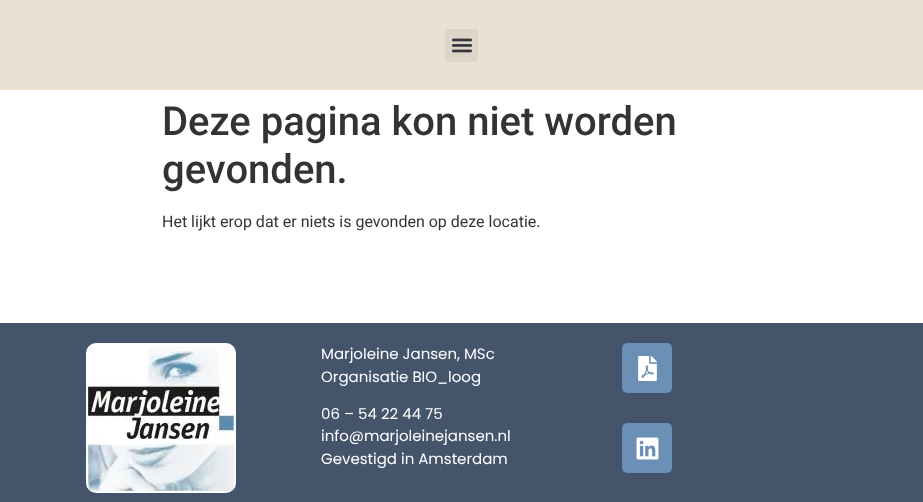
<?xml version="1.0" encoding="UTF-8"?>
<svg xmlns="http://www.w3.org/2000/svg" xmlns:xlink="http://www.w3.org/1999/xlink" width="923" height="502">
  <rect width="100%" height="100%" fill="#ffffff" />
  <rect width="923" height="90" fill="#eae0d4" />
  <rect x="445" y="29" width="33" height="33" rx="3" fill="#ded5c9" />
  <image x="451" y="38" width="22" height="15" xlink:href="image1.png" />
  <rect y="323" width="923" height="179" fill="#44546a" />
  <image x="86" y="343" width="150" height="150" xlink:href="image2.png" />
  <rect x="622" y="343" width="50" height="50" rx="5" fill="#6b8fb5" />
  <image x="638" y="356" width="19" height="25" xlink:href="image3.png" />
  <rect x="622" y="423" width="50" height="50" rx="5" fill="#6b8fb5" />
  <image x="636" y="437" width="23" height="23" xlink:href="image4.png" />
  <text x="162" y="135" style="font-family: Roboto; font-size: 40px; font-weight: 500; fill: #333333">Deze pagina kon niet worden</text>
  <text x="162" y="183" style="font-family: Roboto; font-size: 40px; font-weight: 500; fill: #333333">gevonden.</text>
  <text x="162" y="227" style="font-family: Roboto; font-size: 16px; fill: #333333">Het lijkt erop dat er niets is gevonden op deze locatie.</text>
  <text x="321" y="359" style="font-family: Poppins; font-size: 15px; fill: #ffffff">Marjoleine Jansen, MSc</text>
  <text x="321" y="382" style="font-family: Poppins; font-size: 15px; fill: #ffffff">Organisatie BIO_loog</text>
  <text x="321" y="419" style="font-family: Poppins; font-size: 15px; fill: #ffffff">06 – 54 22 44 75</text>
  <text x="321" y="441" style="font-family: Poppins; font-size: 15px; fill: #ffffff">info@marjoleinejansen.nl</text>
  <text x="321" y="464" style="font-family: Poppins; font-size: 15px; fill: #ffffff">Gevestigd in Amsterdam</text>
</svg>
